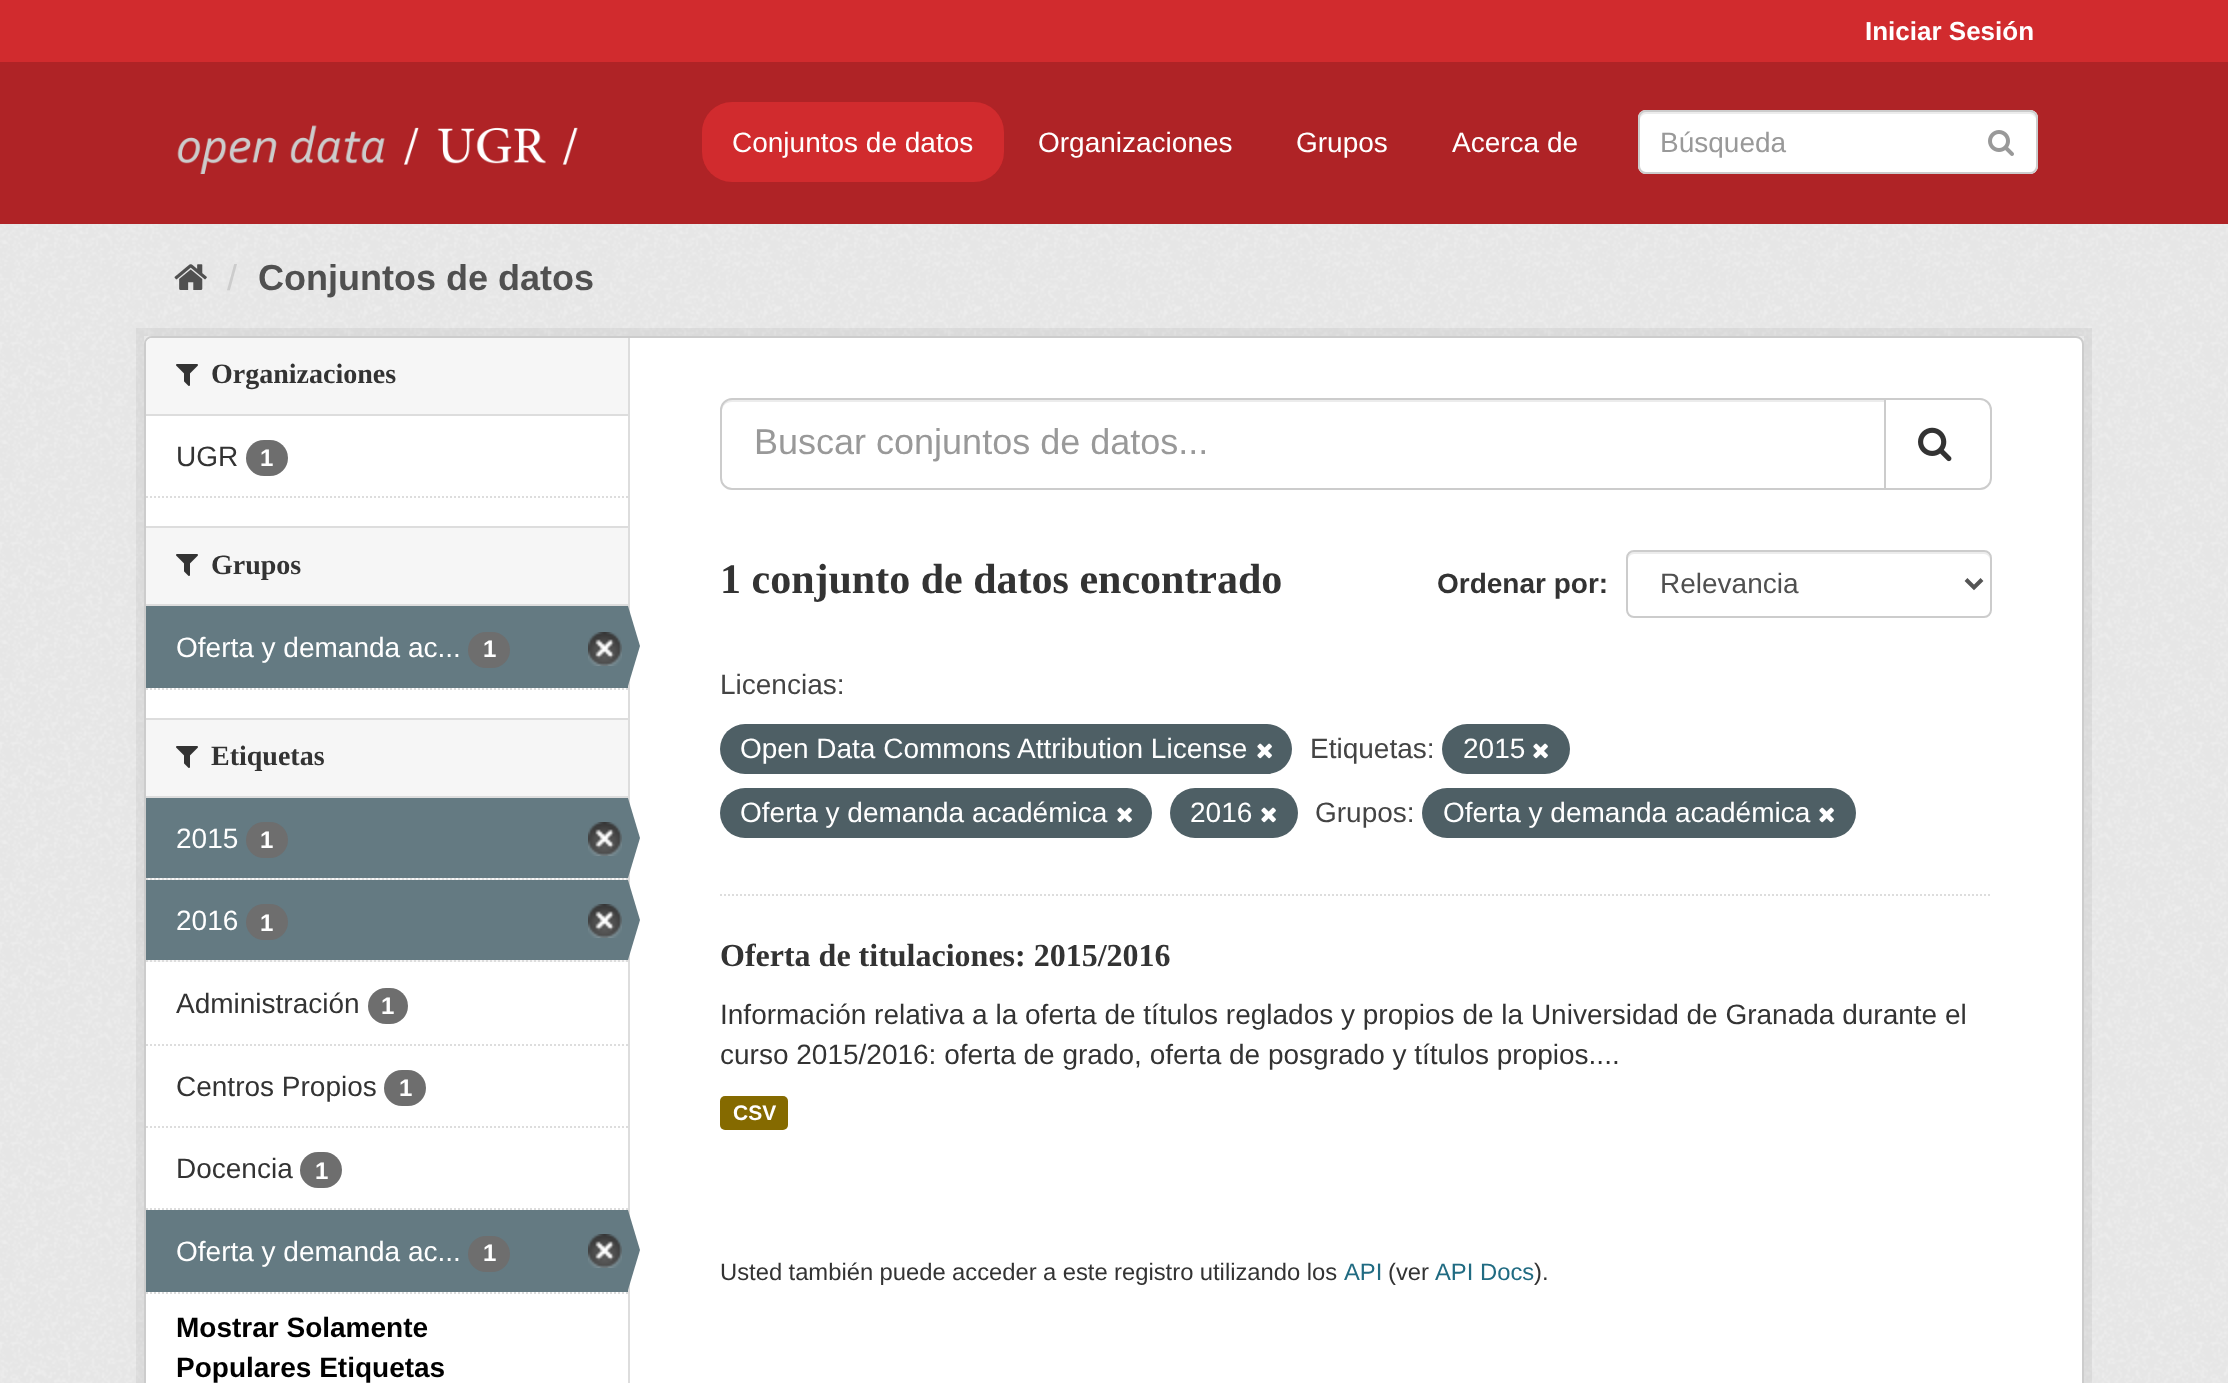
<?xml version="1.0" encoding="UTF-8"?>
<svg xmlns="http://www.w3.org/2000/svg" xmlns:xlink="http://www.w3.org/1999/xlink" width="2228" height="1383">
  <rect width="100%" height="100%" fill="#d12b2e" />
  <rect y="62" width="2228" height="162" fill="#af2326" />
  <image x="177" y="125" width="401" height="49" xlink:href="image1.png" />
  <rect x="702" y="102" width="302" height="80" rx="30" fill="#d12b2e" />
  <rect x="1638" y="110" width="400" height="64" rx="8" fill="#ffffff" />
  <path d="M 1646 114 h 384 c 3 0 6 3 6 6 c 0 -4 -1 -8 -6 -8 h -384 c -5 0 -6 4 -6 8 c 0 -3 3 -6 6 -6 z" fill="#ececec" />
  <rect x="1639" y="111" width="398" height="62" rx="7" fill="none" stroke="#cccccc" stroke-width="2" />
  <image x="1988" y="130" width="26" height="26" xlink:href="image2.png" />
  <rect y="224" width="2228" height="1159" fill="#eeeeee" />
  <image x="0" y="224" width="2228" height="1159" xlink:href="image3.png" />
  <image x="174" y="264" width="33" height="26" xlink:href="image4.png" />
  <rect x="140" y="332" width="1948" height="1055" fill="none" stroke="#000000" stroke-opacity="0.05" stroke-width="8" />
  <rect x="145" y="337" width="1938" height="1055" rx="7" fill="#ffffff" stroke="#cccccc" stroke-width="2" />
  <path d="M 152 338 h 476 v 78 h -482 v -72 c 0 -3.5 2.5 -6 6 -6 z" fill="#f6f6f6" />
  <rect x="146" y="414" width="482" height="2" fill="#dddddd" />
  <image x="176" y="364" width="22" height="22" xlink:href="image5.png" />
  <rect x="246" y="440" width="42" height="36" rx="18" fill="#6e6e6e" />
  <path d="M 146 497 h 482" fill="none" stroke="#dddddd" stroke-width="2" stroke-dasharray="2 2" />
  <rect x="146" y="528" width="482" height="76" fill="#f6f6f6" />
  <rect x="146" y="526" width="482" height="2" fill="#dddddd" />
  <rect x="146" y="604" width="482" height="2" fill="#dddddd" />
  <image x="176" y="554" width="22" height="22" xlink:href="image5.png" />
  <rect x="146" y="606" width="482" height="82" fill="#647a82" />
  <rect x="468" y="632" width="42" height="36" rx="18" fill="#6e6e6e" />
  <image x="588" y="632" width="34" height="34" xlink:href="image6.png" />
  <rect x="628" y="338" width="2" height="1045" fill="#dddddd" />
  <path d="M 628 686 v -80 l 12 40 z" fill="#647a82" />
  <path d="M 146 689 h 482" fill="none" stroke="#dddddd" stroke-width="2" stroke-dasharray="2 2" />
  <rect x="146" y="720" width="482" height="76" fill="#f6f6f6" />
  <rect x="146" y="718" width="482" height="2" fill="#dddddd" />
  <rect x="146" y="796" width="482" height="2" fill="#dddddd" />
  <image x="176" y="746" width="22" height="22" xlink:href="image5.png" />
  <rect x="148" y="878" width="478" height="2" fill="#f6f6f6" />
  <path d="M 146 879 h 482" fill="none" stroke="#dddddd" stroke-width="2" stroke-dasharray="2 2" />
  <rect x="146" y="798" width="482" height="80" fill="#647a82" />
  <rect x="246" y="822" width="42" height="36" rx="18" fill="#6e6e6e" />
  <image x="588" y="822" width="34" height="34" xlink:href="image6.png" />
  <path d="M 628 878 v -80 l 12 40 z" fill="#647a82" />
  <rect x="148" y="960" width="478" height="2" fill="#f6f6f6" />
  <path d="M 146 961 h 482" fill="none" stroke="#dddddd" stroke-width="2" stroke-dasharray="2 2" />
  <rect x="146" y="880" width="482" height="80" fill="#647a82" />
  <rect x="246" y="904" width="42" height="36" rx="18" fill="#6e6e6e" />
  <image x="588" y="904" width="34" height="34" xlink:href="image6.png" />
  <path d="M 628 960 v -80 l 12 40 z" fill="#647a82" />
  <path d="M 146 1045 h 482" fill="none" stroke="#dddddd" stroke-width="2" stroke-dasharray="2 2" />
  <rect x="368" y="988" width="40" height="36" rx="18" fill="#6e6e6e" />
  <path d="M 146 1127 h 482" fill="none" stroke="#dddddd" stroke-width="2" stroke-dasharray="2 2" />
  <rect x="384" y="1070" width="42" height="36" rx="18" fill="#6e6e6e" />
  <path d="M 146 1209 h 482" fill="none" stroke="#dddddd" stroke-width="2" stroke-dasharray="2 2" />
  <rect x="300" y="1152" width="42" height="36" rx="18" fill="#6e6e6e" />
  <rect x="146" y="1210" width="482" height="82" fill="#647a82" />
  <rect x="468" y="1236" width="42" height="36" rx="18" fill="#6e6e6e" />
  <image x="588" y="1234" width="34" height="34" xlink:href="image6.png" />
  <path d="M 628 1290 v -80 l 12 40 z" fill="#647a82" />
  <path d="M 146 1293 h 482" fill="none" stroke="#dddddd" stroke-width="2" stroke-dasharray="2 2" />
  <path d="M 720 895 h 1272" fill="none" stroke="#dddddd" stroke-width="2" stroke-dasharray="2 2" />
  <path d="M 732 402 h 1152 v -2 h -1152 c -7 0 -10 6 -10 12 c 0 -6 4 -10 10 -10 z" fill="#ececec" />
  <path d="M 732 399 h 1153 v 90 h -1153 c -6 0 -11 -5 -11 -11 v -68 c 0 -6 5 -11 11 -11 z" fill="none" stroke="#cccccc" stroke-width="2" />
  <path d="M 1885 399 h 95 c 6 0 11 5 11 11 v 68 c 0 6 -5 11 -11 11 h -95 z" fill="#ffffff" stroke="#cccccc" stroke-width="2" />
  <image x="1918" y="427" width="34" height="35" xlink:href="image7.png" />
  <path d="M 1634 554 h 350 c 3 0 6 3 6 6 v -2 c 0 -3 -3 -6 -6 -6 h -350 c -3 0 -6 3 -6 6 v 2 c 0 -3 3 -6 6 -6 z" fill="#ececec" />
  <rect x="1627" y="551" width="364" height="66" rx="7" fill="none" stroke="#cccccc" stroke-width="2" />
  <path d="M 1966 579.5 l 8 8 l 8 -8" fill="none" stroke="#555555" stroke-width="4" />
  <rect x="720" y="724" width="572" height="50" rx="25" fill="#4e5f65" />
  <image x="1257" y="743" width="15" height="16" xlink:href="image8.png" />
  <rect x="1442" y="724" width="128" height="50" rx="25" fill="#4e5f65" />
  <image x="1533" y="743" width="15" height="16" xlink:href="image8.png" />
  <rect x="720" y="788" width="432" height="50" rx="25" fill="#4e5f65" />
  <image x="1117" y="807" width="15" height="16" xlink:href="image8.png" />
  <rect x="1170" y="788" width="128" height="50" rx="25" fill="#4e5f65" />
  <image x="1261" y="807" width="15" height="16" xlink:href="image8.png" />
  <rect x="1422" y="788" width="434" height="50" rx="25" fill="#4e5f65" />
  <image x="1819" y="807" width="15" height="16" xlink:href="image8.png" />
  <rect x="720" y="1096" width="68" height="34" rx="5" fill="#856a00" />
  <text x="1865" y="40" style="font-family: Liberation Sans; font-size: 26px; font-weight: bold; fill: #ffffff">Iniciar Sesión</text>
  <text x="732" y="152" style="font-family: Liberation Sans; font-size: 28px; fill: #ffffff">Conjuntos de datos</text>
  <text x="1038" y="152" style="font-family: Liberation Sans; font-size: 28px; fill: #ffffff">Organizaciones</text>
  <text x="1296" y="152" style="font-family: Liberation Sans; font-size: 28px; fill: #ffffff">Grupos</text>
  <text x="1452" y="152" style="font-family: Liberation Sans; font-size: 28px; fill: #ffffff">Acerca de</text>
  <text x="1660" y="152" style="font-family: Liberation Sans; font-size: 28px; fill: #999999">Búsqueda</text>
  <text x="227" y="290" style="font-family: Liberation Sans; font-size: 36px; fill: #cccccc">/</text>
  <text x="258" y="290" style="font-family: Liberation Sans; font-size: 36px; font-weight: bold; fill: #505050">Conjuntos de datos</text>
  <text x="211" y="383" style="font-family: Liberation Serif; font-size: 28px; font-weight: bold; fill: #333333">Organizaciones</text>
  <text x="176" y="466" style="font-family: Liberation Sans; font-size: 28px; fill: #333333">UGR</text>
  <text x="260" y="466" style="font-family: Liberation Sans; font-size: 24px; font-weight: bold; fill: #ffffff">1</text>
  <text x="211" y="574" style="font-family: Liberation Serif; font-size: 28px; font-weight: bold; fill: #333333">Grupos</text>
  <text x="176" y="657" style="font-family: Liberation Sans; font-size: 28px; fill: #ffffff">Oferta y demanda ac...</text>
  <text x="483" y="657" style="font-family: Liberation Sans; font-size: 24px; font-weight: bold; fill: #ffffff">1</text>
  <text x="211" y="765" style="font-family: Liberation Serif; font-size: 28px; font-weight: bold; fill: #333333">Etiquetas</text>
  <text x="176" y="848" style="font-family: Liberation Sans; font-size: 28px; fill: #ffffff">2015</text>
  <text x="260" y="848" style="font-family: Liberation Sans; font-size: 24px; font-weight: bold; fill: #ffffff">1</text>
  <text x="176" y="930" style="font-family: Liberation Sans; font-size: 28px; fill: #ffffff">2016</text>
  <text x="260" y="931" style="font-family: Liberation Sans; font-size: 24px; font-weight: bold; fill: #ffffff">1</text>
  <text x="176" y="1013" style="font-family: Liberation Sans; font-size: 28px; fill: #333333">Administración</text>
  <text x="381" y="1014" style="font-family: Liberation Sans; font-size: 24px; font-weight: bold; fill: #ffffff">1</text>
  <text x="176" y="1096" style="font-family: Liberation Sans; font-size: 28px; fill: #333333">Centros Propios</text>
  <text x="399" y="1096" style="font-family: Liberation Sans; font-size: 24px; font-weight: bold; fill: #ffffff">1</text>
  <text x="176" y="1178" style="font-family: Liberation Sans; font-size: 28px; fill: #333333">Docencia</text>
  <text x="315" y="1179" style="font-family: Liberation Sans; font-size: 24px; font-weight: bold; fill: #ffffff">1</text>
  <text x="176" y="1261" style="font-family: Liberation Sans; font-size: 28px; fill: #ffffff">Oferta y demanda ac...</text>
  <text x="483" y="1261" style="font-family: Liberation Sans; font-size: 24px; font-weight: bold; fill: #ffffff">1</text>
  <text x="176" y="1337" style="font-family: Liberation Sans; font-size: 28px; font-weight: bold; fill: #000000">Mostrar Solamente</text>
  <text x="176" y="1377" style="font-family: Liberation Sans; font-size: 28px; font-weight: bold; fill: #000000">Populares Etiquetas</text>
  <text x="754" y="454" style="font-family: Liberation Sans; font-size: 36px; fill: #999999">Buscar conjuntos de datos...</text>
  <text x="720" y="593" style="font-family: Liberation Serif; font-size: 42px; font-weight: bold; fill: #333333">1 conjunto de datos encontrado</text>
  <text x="1437" y="593" style="font-family: Liberation Sans; font-size: 28px; font-weight: bold; fill: #333333">Ordenar por:</text>
  <text x="1660" y="593" style="font-family: Liberation Sans; font-size: 28px; fill: #505050">Relevancia</text>
  <text x="720" y="694" style="font-family: Liberation Sans; font-size: 28px; fill: #444444">Licencias:</text>
  <text x="740" y="758" style="font-family: Liberation Sans; font-size: 28px; fill: #ffffff">Open Data Commons Attribution License</text>
  <text x="1310" y="758" style="font-family: Liberation Sans; font-size: 28px; fill: #444444">Etiquetas:</text>
  <text x="1463" y="758" style="font-family: Liberation Sans; font-size: 28px; fill: #ffffff">2015</text>
  <text x="740" y="822" style="font-family: Liberation Sans; font-size: 28px; fill: #ffffff">Oferta y demanda académica</text>
  <text x="1190" y="822" style="font-family: Liberation Sans; font-size: 28px; fill: #ffffff">2016</text>
  <text x="1315" y="822" style="font-family: Liberation Sans; font-size: 28px; fill: #444444">Grupos:</text>
  <text x="1443" y="822" style="font-family: Liberation Sans; font-size: 28px; fill: #ffffff">Oferta y demanda académica</text>
  <text x="720" y="966" style="font-family: Liberation Serif; font-size: 32px; font-weight: bold; fill: #333333">Oferta de titulaciones: 2015/2016</text>
  <text x="720" y="1024" style="font-family: Liberation Sans; font-size: 28px; fill: #333333">Información relativa a la oferta de títulos reglados y propios de la Universidad de Granada durante el</text>
  <text x="720" y="1064" style="font-family: Liberation Sans; font-size: 28px; fill: #333333">curso 2015/2016: oferta de grado, oferta de posgrado y títulos propios....</text>
  <text x="733" y="1120" style="font-family: Liberation Sans; font-size: 21px; font-weight: bold; fill: #ffffff">CSV</text>
  <text x="720" y="1280" word-spacing="-0.25" style="font-family: Liberation Sans; font-size: 23.8px; fill: #333333">Usted también puede acceder a este registro utilizando los</text>
  <text x="1344" y="1280" style="font-family: Liberation Sans; font-size: 23.8px; fill: #206b82">API</text>
  <text x="1388" y="1280" style="font-family: Liberation Sans; font-size: 23.8px; fill: #333333">(ver</text>
  <text x="1435" y="1280" style="font-family: Liberation Sans; font-size: 23.8px; fill: #206b82">API Docs</text>
  <text x="1534" y="1280" style="font-family: Liberation Sans; font-size: 23.8px; fill: #333333">).</text>
</svg>
